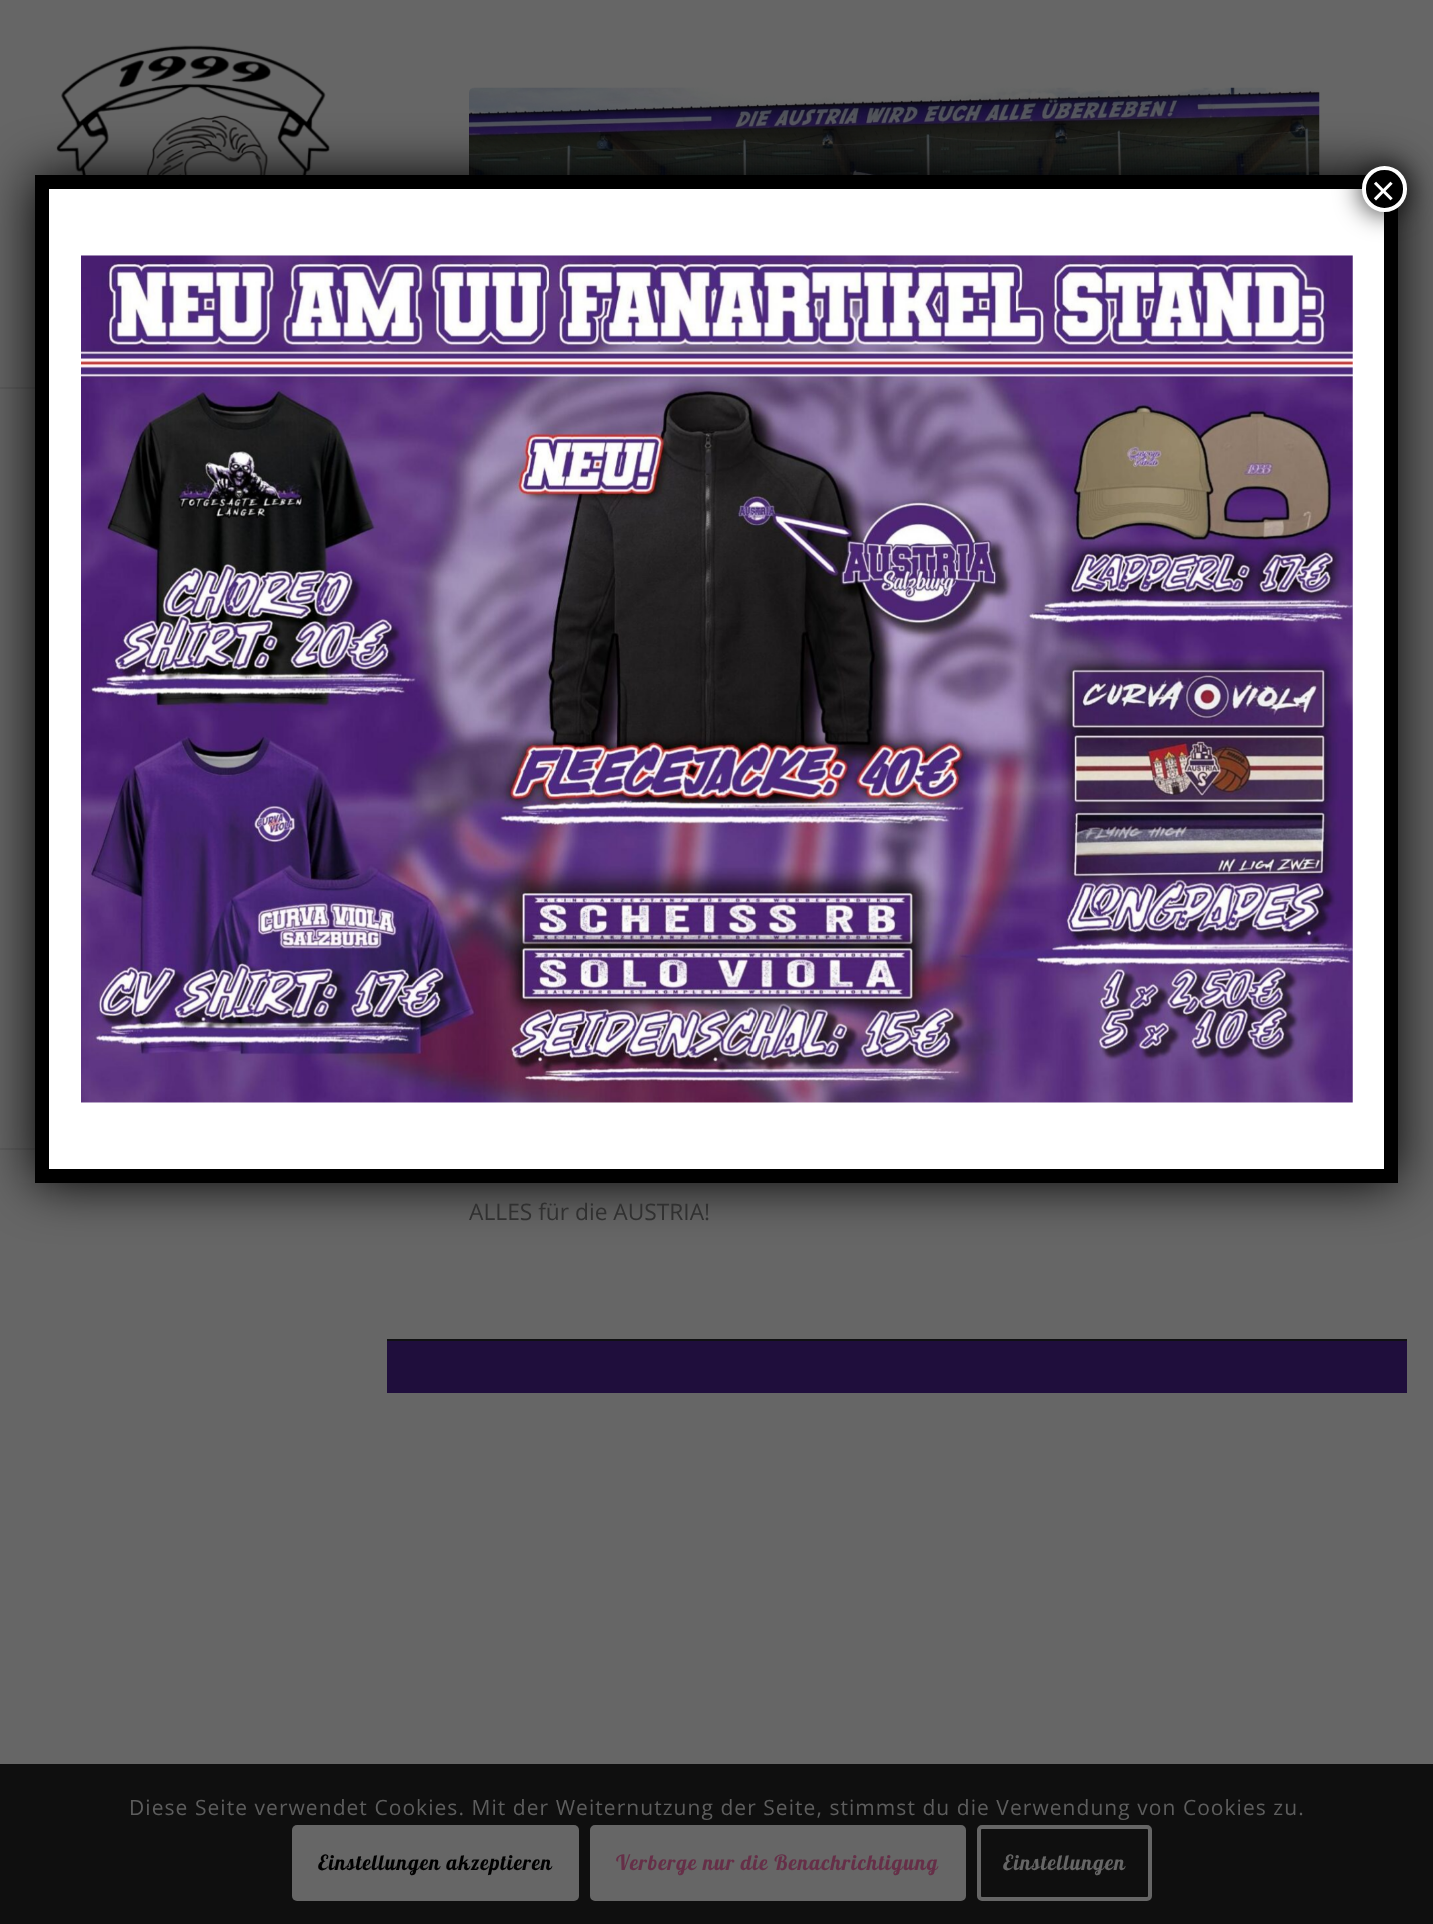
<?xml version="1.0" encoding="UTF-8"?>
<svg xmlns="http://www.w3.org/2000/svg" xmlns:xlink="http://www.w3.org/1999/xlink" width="1433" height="1924">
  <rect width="100%" height="100%" fill="#666666" />
  <rect y="1148" width="35" height="2" fill="#5e5e5e" />
  <rect y="387" width="35" height="2" fill="#5e5e5e" />
  <image x="56" y="45" width="274" height="130" xlink:href="image2.png" />
  <image x="469" y="87" width="851" height="88" xlink:href="image3.png" />
  <rect x="35" y="175" width="1363" height="1008" rx="5" fill="#020202" filter="blur(26px)" />
  <rect x="49" y="189" width="1335" height="980" fill="#ffffff" />
  <path d="M 42 182 h 1349 v 994 h -1349 z" fill="none" stroke="#000000" stroke-width="14" />
  <rect x="1360" y="165" width="49" height="49" rx="24.5" fill="#020202" fill-opacity="0.75" filter="blur(13px)" />
  <rect x="1364" y="168" width="41" height="42" rx="20.5" fill="#000000" stroke="#ffffff" stroke-width="4" />
  <image x="81" y="255" width="1272" height="848" xlink:href="image1.png" />
  <rect x="382" y="1339" width="1025" height="2" fill="#101112" />
  <rect x="382" y="1339" width="5" height="2" fill="#666666" />
  <rect x="387" y="1341" width="1020" height="52" fill="#1f0e3c" />
  <rect y="1764" width="1433" height="160" fill="#0f0f0f" />
  <rect x="292" y="1825" width="287" height="76" rx="5" fill="#666666" />
  <rect x="592" y="1827" width="372" height="72" rx="3" fill="#666666" stroke="#666666" stroke-width="4" />
  <rect x="979" y="1827" width="171" height="72" rx="3" fill="none" stroke="#666666" stroke-width="4" />
  <text x="1371" y="205" style="font-family: Liberation Sans; font-size: 42px; fill: #ffffff">×</text>
  <text x="469" y="1220" style="font-family: Open Sans; font-size: 22.75px; fill: #303030">ALLES für die AUSTRIA!</text>
  <text x="129" y="1815" style="font-family: Open Sans; font-size: 21px; letter-spacing: 1.05px; fill: #5d5d5d">Diese Seite verwendet Cookies. Mit der Weiternutzung der Seite, stimmst du die Verwendung von Cookies zu.</text>
  <text x="318" y="1870" style="font-family: Lobster; font-size: 21px; letter-spacing: 1.05px; fill: #000000">Einstellungen akzeptieren</text>
  <text x="616" y="1870" style="font-family: Lobster; font-size: 21px; letter-spacing: 1.05px; fill: #662f48">Verberge nur die Benachrichtigung</text>
  <text x="1003" y="1870" style="font-family: Lobster; font-size: 21px; letter-spacing: 1.05px; fill: #666666">Einstellungen</text>
</svg>
